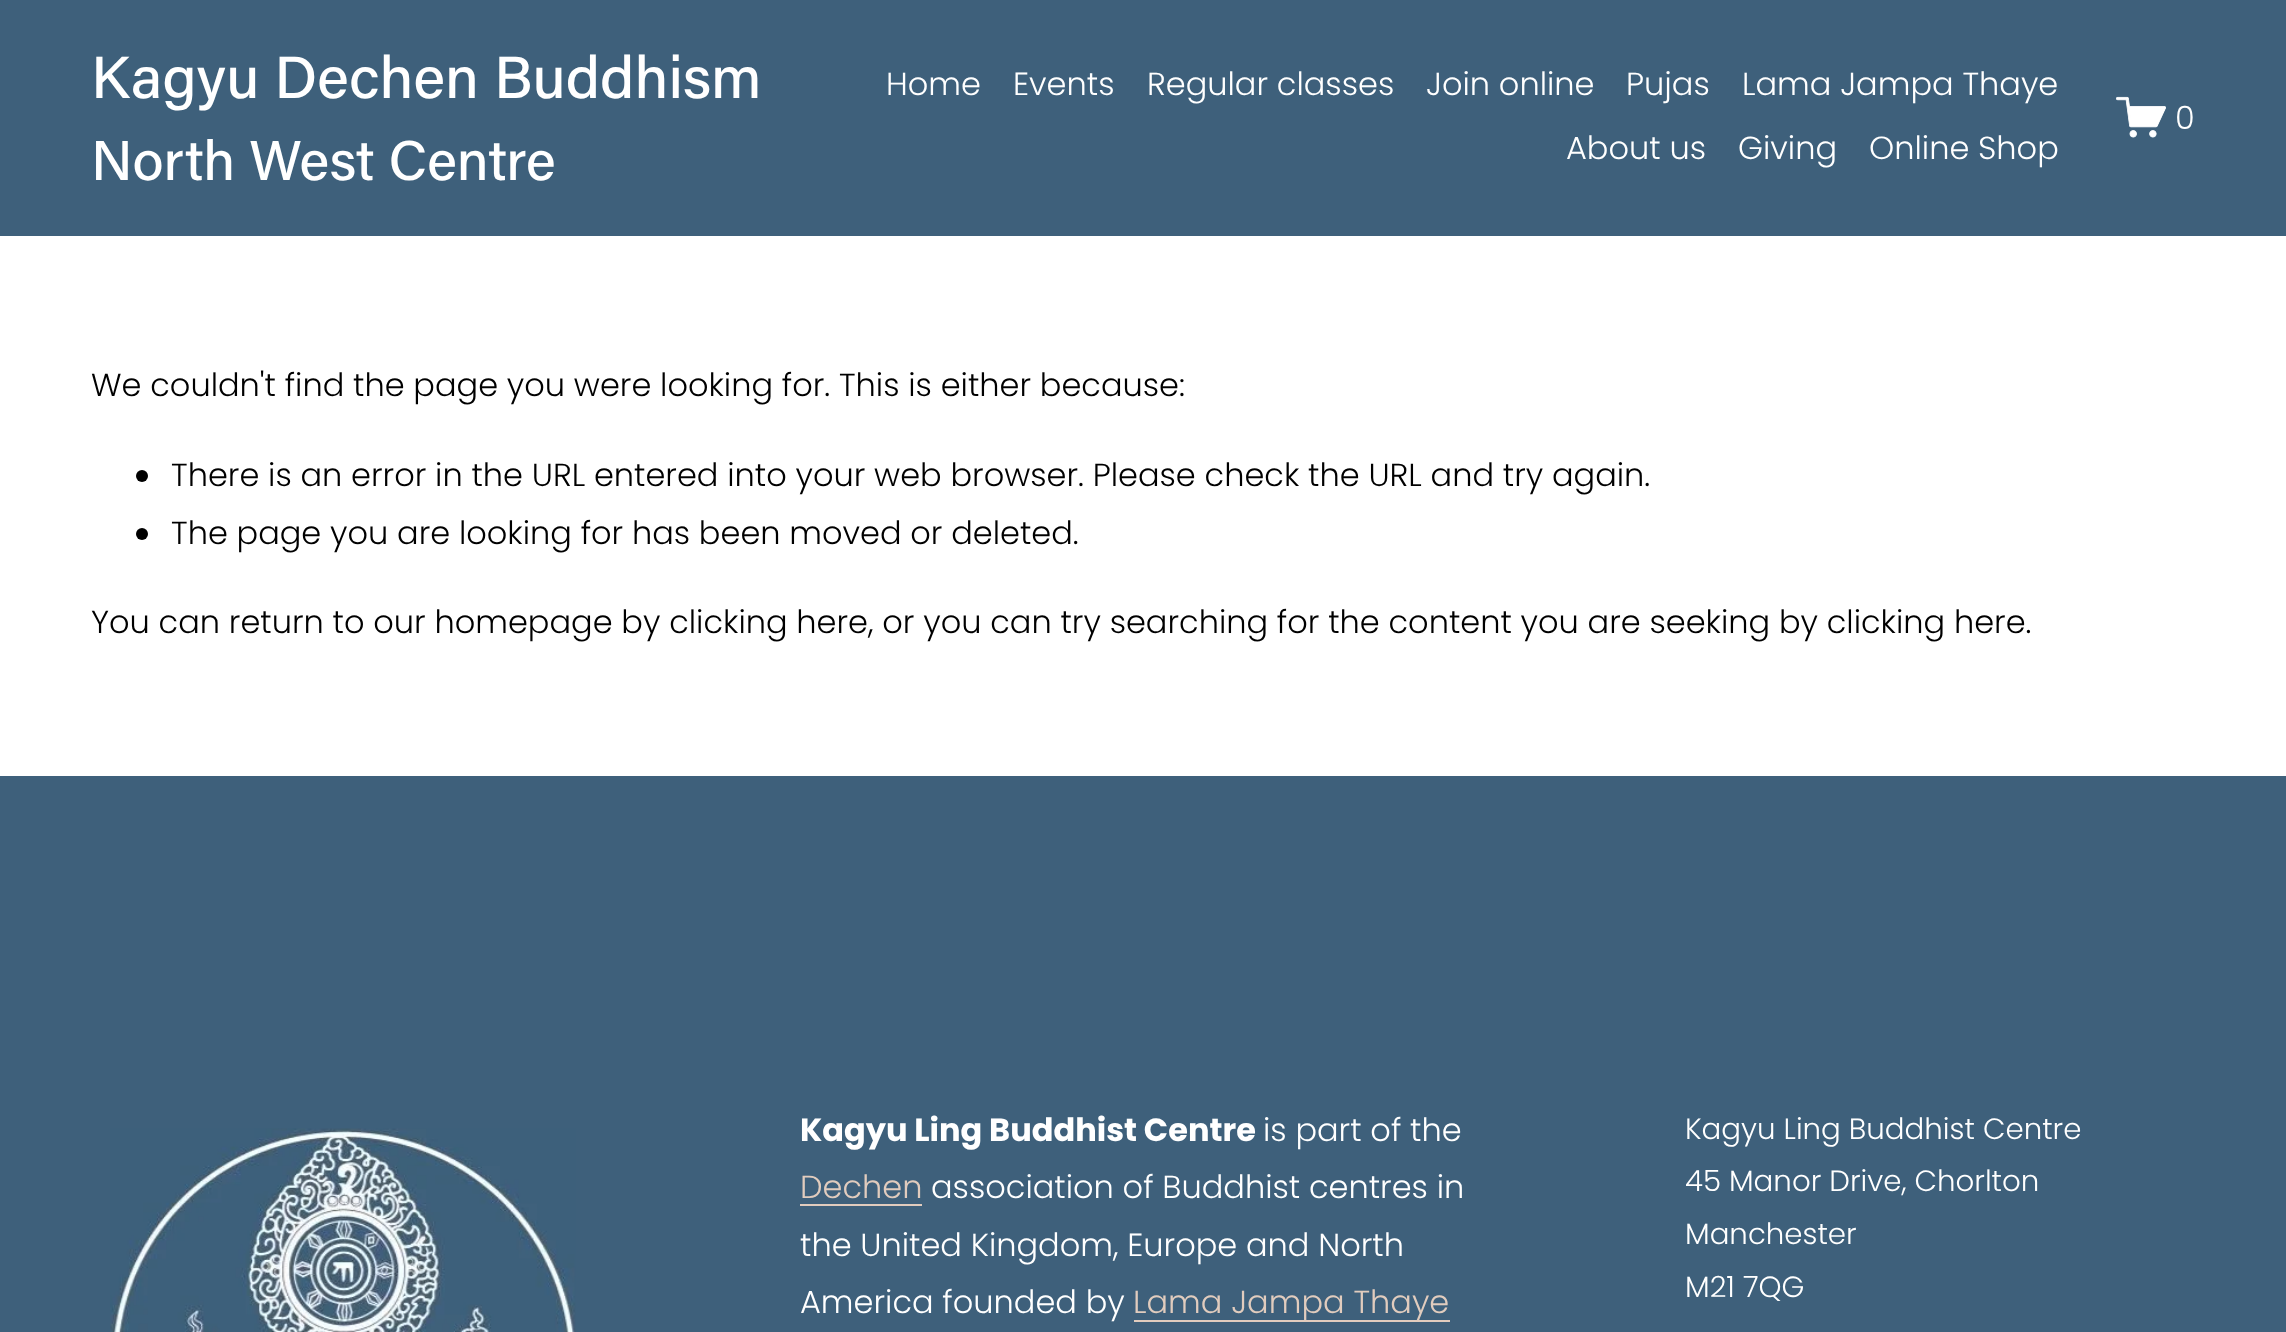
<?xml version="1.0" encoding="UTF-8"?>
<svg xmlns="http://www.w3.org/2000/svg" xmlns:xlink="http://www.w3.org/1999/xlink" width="2286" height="1332">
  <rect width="100%" height="100%" fill="#ffffff" />
  <rect width="2286" height="236" fill="#3e607b" />
  <image x="2116" y="96" width="50" height="42" xlink:href="image1.png" />
  <circle cx="142" cy="476" r="6" fill="#000000" />
  <circle cx="142" cy="534" r="6" fill="#000000" />
  <rect y="776" width="2286" height="556" fill="#3e607b" />
  <image x="110" y="1128" width="466" height="204" xlink:href="image2.png" />
  <rect x="800" y="1204" width="122" height="2" fill="#e1ccbe" />
  <rect x="1134" y="1320" width="316" height="2" fill="#e1ccbe" />
  <text x="91" y="98" style="font-family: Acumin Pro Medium; font-size: 59.5px; font-weight: 500; fill: #ffffff">Kagyu Dechen Buddhism</text>
  <text x="91" y="180" style="font-family: Acumin Pro Medium; font-size: 56px; font-weight: 500; fill: #ffffff">North West Centre</text>
  <text x="886" y="95" style="font-family: Poppins; font-size: 32px; font-weight: 300; fill: #ffffff">Home</text>
  <text x="1013" y="95" style="font-family: Poppins; font-size: 32px; font-weight: 300; fill: #ffffff">Events</text>
  <text x="1147" y="95" style="font-family: Poppins; font-size: 32px; font-weight: 300; fill: #ffffff">Regular classes</text>
  <text x="1426" y="95" style="font-family: Poppins; font-size: 32px; font-weight: 300; fill: #ffffff">Join online</text>
  <text x="1626" y="95" style="font-family: Poppins; font-size: 32px; font-weight: 300; fill: #ffffff">Pujas</text>
  <text x="1742" y="95" style="font-family: Poppins; font-size: 32px; font-weight: 300; fill: #ffffff">Lama Jampa Thaye</text>
  <text x="1566" y="159" style="font-family: Poppins; font-size: 32px; font-weight: 300; fill: #ffffff">About us</text>
  <text x="1738" y="159" style="font-family: Poppins; font-size: 32px; font-weight: 300; fill: #ffffff">Giving</text>
  <text x="1869" y="159" style="font-family: Poppins; font-size: 32px; font-weight: 300; fill: #ffffff">Online Shop</text>
  <text x="2175" y="129" style="font-family: Poppins; font-size: 32px; font-weight: 300; fill: #ffffff">0</text>
  <text x="91" y="396" style="font-family: Poppins; font-size: 32px; font-weight: 300; fill: #000000">We couldn't find the page you were looking for. This is either because:</text>
  <text x="171" y="486" style="font-family: Poppins; font-size: 32px; font-weight: 300; fill: #000000">There is an error in the URL entered into your web browser. Please check the URL and try again.</text>
  <text x="171" y="544" style="font-family: Poppins; font-size: 32px; font-weight: 300; fill: #000000">The page you are looking for has been moved or deleted.</text>
  <text x="91" y="633" style="font-family: Poppins; font-size: 32px; font-weight: 300; fill: #000000">You can return to our homepage by clicking here, or you can try searching for the content you are seeking by clicking here.</text>
  <text x="800" y="1141" style="font-family: Poppins; font-size: 32px; font-weight: bold; fill: #ffffff">Kagyu Ling Buddhist Centre</text>
  <text x="1263" y="1141" style="font-family: Poppins; font-size: 32px; font-weight: 300; fill: #ffffff">is part of the</text>
  <text x="800" y="1198" style="font-family: Poppins; font-size: 32px; font-weight: 300; fill: #e1ccbe">Dechen</text>
  <text x="931" y="1198" style="font-family: Poppins; font-size: 32px; font-weight: 300; fill: #ffffff">association of Buddhist centres in</text>
  <text x="800" y="1256" style="font-family: Poppins; font-size: 32px; font-weight: 300; fill: #ffffff">the United Kingdom, Europe and North</text>
  <text x="800" y="1313" style="font-family: Poppins; font-size: 32px; font-weight: 300; fill: #ffffff">America founded by</text>
  <text x="1133" y="1313" style="font-family: Poppins; font-size: 32px; font-weight: 300; fill: #e1ccbe">Lama Jampa Thaye</text>
  <text x="1685" y="1139" style="font-family: Poppins; font-size: 29.25px; font-weight: 300; fill: #ffffff">Kagyu Ling Buddhist Centre</text>
  <text x="1685" y="1191" style="font-family: Poppins; font-size: 29.25px; font-weight: 300; fill: #ffffff">45 Manor Drive, Chorlton</text>
  <text x="1685" y="1244" style="font-family: Poppins; font-size: 29.25px; font-weight: 300; fill: #ffffff">Manchester</text>
  <text x="1685" y="1297" style="font-family: Poppins; font-size: 29.25px; font-weight: 300; fill: #ffffff">M21 7QG</text>
</svg>
